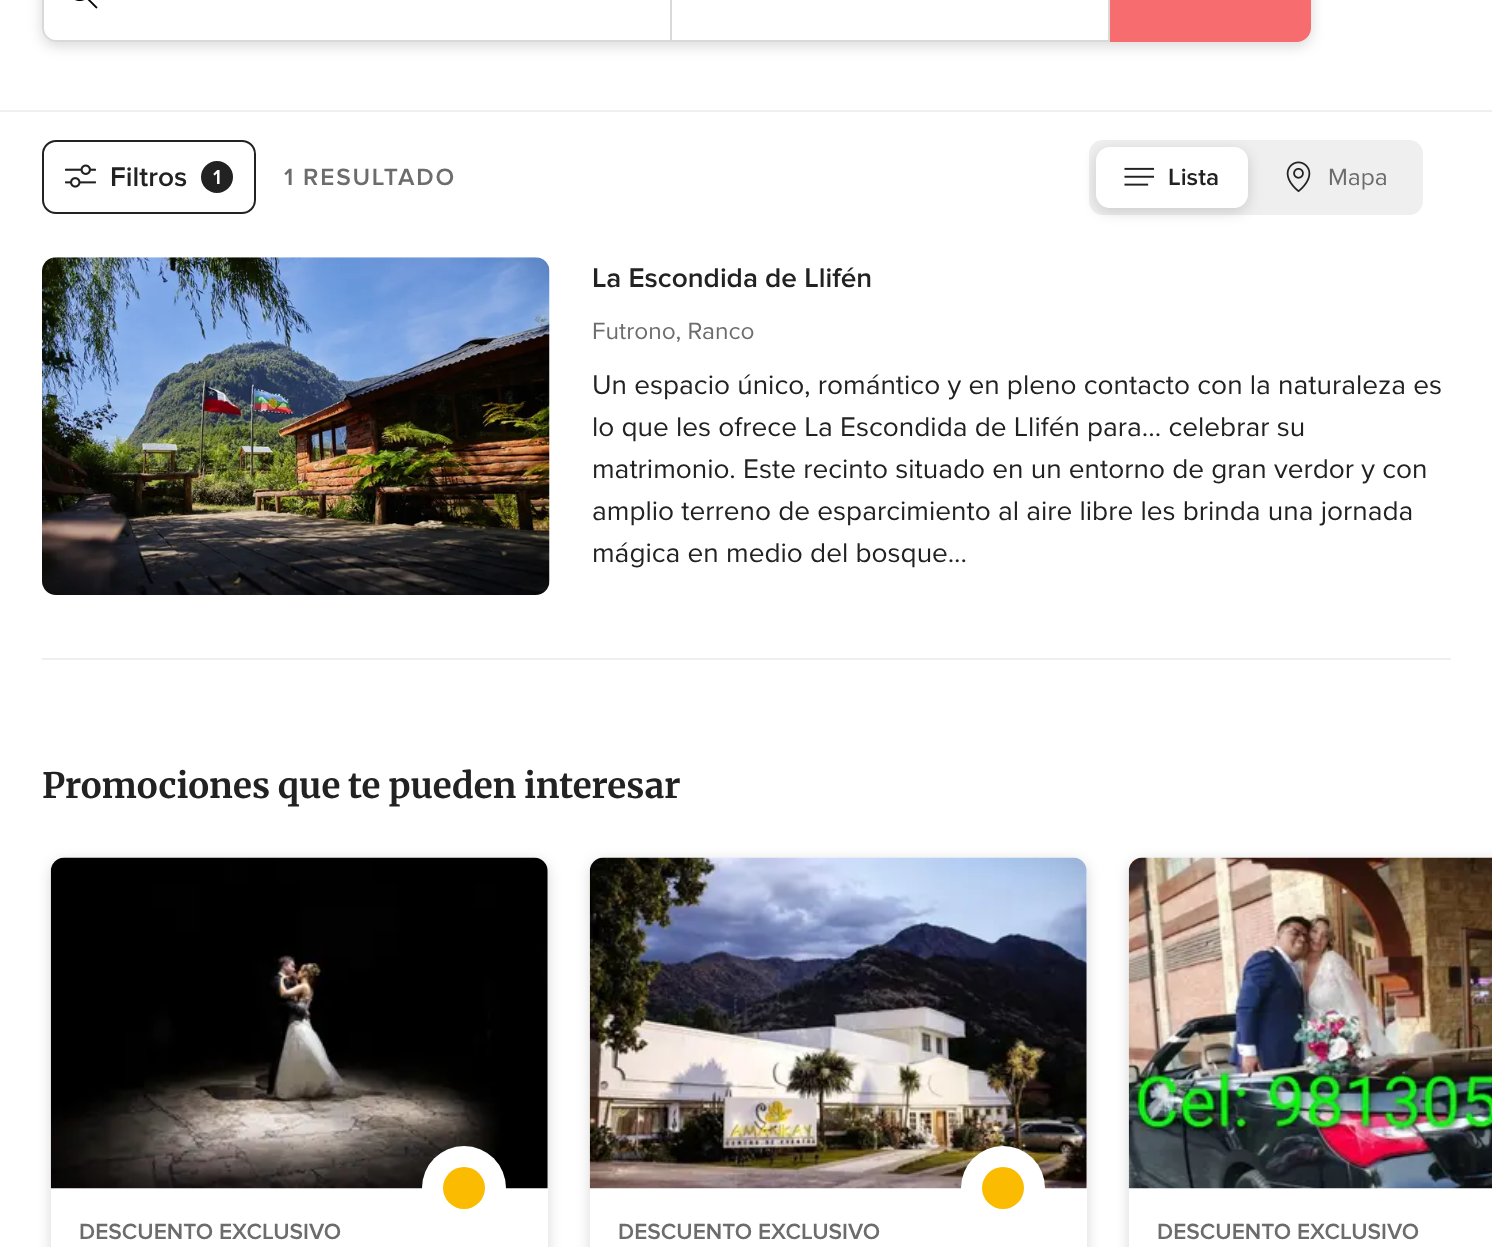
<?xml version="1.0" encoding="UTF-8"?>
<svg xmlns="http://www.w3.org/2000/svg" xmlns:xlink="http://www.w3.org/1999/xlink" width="1492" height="1247">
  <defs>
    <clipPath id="clip1"><path d="M 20 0 h 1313 v 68 h -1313 z m 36 -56 h 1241 c 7.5 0 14 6.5 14 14 v 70 c 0 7.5 -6.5 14 -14 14 h -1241 c -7.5 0 -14 -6.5 -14 -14 v -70 c 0 -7.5 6.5 -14 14 -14 z" clip-rule="evenodd" /></clipPath>
    <clipPath id="clip2"><path d="M 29 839 h 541 v 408 h -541 z m 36 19 h 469 c 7.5 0 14 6.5 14 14 v 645 c 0 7.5 -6.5 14 -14 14 h -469 c -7.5 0 -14 -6.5 -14 -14 v -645 c 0 -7.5 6.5 -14 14 -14 z" clip-rule="evenodd" /></clipPath>
    <clipPath id="clip3"><path d="M 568 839 h 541 v 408 h -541 z m 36 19 h 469 c 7.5 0 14 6.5 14 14 v 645 c 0 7.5 -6.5 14 -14 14 h -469 c -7.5 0 -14 -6.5 -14 -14 v -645 c 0 -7.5 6.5 -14 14 -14 z" clip-rule="evenodd" /></clipPath>
    <clipPath id="clip4"><path d="M 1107 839 h 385 v 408 h -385 z m 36 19 h 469 c 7.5 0 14 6.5 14 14 v 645 c 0 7.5 -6.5 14 -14 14 h -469 c -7.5 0 -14 -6.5 -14 -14 v -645 c 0 -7.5 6.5 -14 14 -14 z" clip-rule="evenodd" /></clipPath>
  </defs>
  <rect width="100%" height="100%" fill="#ffffff" />
  <g clip-path="url(#clip1)">
    <rect x="42" y="-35" width="1269" height="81" rx="14" fill="#000000" fill-opacity="0.15" filter="blur(7px)" />
  </g>
  <path d="M 56 -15 h 615 v 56 h -615 c -7 0 -13 -6 -13 -13 v -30 c 0 -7 6 -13 13 -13 z" fill="#ffffff" stroke="#d9d9d9" stroke-width="2" />
  <image x="75" y="0" width="23" height="9" xlink:href="image1.png" />
  <rect x="1108" width="2" height="42" fill="#d9d9d9" />
  <rect x="672" y="40" width="438" height="2" fill="#d9d9d9" />
  <path d="M 1110 -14 h 187 c 7.5 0 14 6.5 14 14 v 28 c 0 7.5 -6.5 14 -14 14 h -187 z" fill="#f76c6f" />
  <rect y="110" width="1492" height="2" fill="#efefef" />
  <rect x="43" y="141" width="212" height="72" rx="13" fill="none" stroke="#222222" stroke-width="2" />
  <image x="65" y="164" width="31" height="24" xlink:href="image2.png" />
  <circle cx="217" cy="177" r="16" fill="#222222" />
  <rect x="1089" y="140" width="334" height="75" rx="14" fill="#efefef" />
  <rect x="1096" y="151" width="152" height="61" rx="14" fill="#000000" fill-opacity="0.15" filter="blur(7px)" />
  <rect x="1096" y="147" width="152" height="61" rx="14" fill="#ffffff" />
  <image x="1124" y="167" width="31" height="19" xlink:href="image3.png" />
  <image x="1286" y="161" width="25" height="32" xlink:href="image4.png" />
  <rect x="42" y="658" width="1409" height="2" fill="#efefef" />
  <image x="42" y="257" width="508" height="338" xlink:href="image5.png" />
  <g clip-path="url(#clip2)">
    <rect x="51" y="861" width="497" height="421" rx="14" fill="#000000" fill-opacity="0.15" filter="blur(7px)" />
  </g>
  <image x="50" y="857" width="498" height="332" xlink:href="image6.png" />
  <circle cx="464" cy="1188" r="42" fill="#ffffff" />
  <circle cx="464" cy="1188" r="21" fill="#fabb00" />
  <g clip-path="url(#clip3)">
    <rect x="590" y="861" width="497" height="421" rx="14" fill="#000000" fill-opacity="0.15" filter="blur(7px)" />
  </g>
  <image x="589" y="857" width="498" height="332" xlink:href="image7.png" />
  <circle cx="1003" cy="1188" r="42" fill="#ffffff" />
  <circle cx="1003" cy="1188" r="21" fill="#fabb00" />
  <g clip-path="url(#clip4)">
    <rect x="1129" y="861" width="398" height="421" rx="14" fill="#000000" fill-opacity="0.15" filter="blur(7px)" />
  </g>
  <image x="1128" y="857" width="364" height="332" xlink:href="image8.png" />
  <text x="110" y="186" style="font-family: Proxima Nova; font-size: 28px; font-weight: 600; fill: #222222">Filtros</text>
  <text x="213" y="184" style="font-family: Proxima Nova; font-size: 21px; font-weight: 600; fill: #ffffff">1</text>
  <text x="284" y="185" style="font-family: Proxima Nova; font-size: 24.5px; font-weight: 600; letter-spacing: 1.75px; fill: #6c6c6c">1 RESULTADO</text>
  <text x="1168" y="185" style="font-family: Proxima Nova; font-size: 24.5px; font-weight: 600; fill: #222222">Lista</text>
  <text x="1328" y="185" style="font-family: Proxima Nova; font-size: 24.5px; fill: #6c6c6c">Mapa</text>
  <text x="592" y="287" style="font-family: Proxima Nova; font-size: 28px; font-weight: 600; fill: #222222">La Escondida de Llifén</text>
  <text x="592" y="339" style="font-family: Proxima Nova; font-size: 24.5px; fill: #6c6c6c">Futrono, Ranco</text>
  <text x="592" y="394" style="font-family: Proxima Nova; font-size: 28px; fill: #222222">Un espacio único, romántico y en pleno contacto con la naturaleza es</text>
  <text x="592" y="436" style="font-family: Proxima Nova; font-size: 28px; fill: #222222">lo que les ofrece La Escondida de Llifén para... celebrar su</text>
  <text x="592" y="478" style="font-family: Proxima Nova; font-size: 28px; fill: #222222">matrimonio. Este recinto situado en un entorno de gran verdor y con</text>
  <text x="592" y="520" style="font-family: Proxima Nova; font-size: 28px; fill: #222222">amplio terreno de esparcimiento al aire libre les brinda una jornada</text>
  <text x="592" y="562" style="font-family: Proxima Nova; font-size: 28px; fill: #222222">mágica en medio del bosque...</text>
  <text x="42" y="798" word-spacing="-0.5" style="font-family: Merriweather; font-size: 35px; font-weight: bold; fill: #222222">Promociones que te pueden interesar</text>
  <text x="79" y="1239" style="font-family: Proxima Nova; font-size: 22.75px; font-weight: 600; fill: #6c6c6c">DESCUENTO EXCLUSIVO</text>
  <text x="618" y="1239" style="font-family: Proxima Nova; font-size: 22.75px; font-weight: 600; fill: #6c6c6c">DESCUENTO EXCLUSIVO</text>
  <text x="1157" y="1239" style="font-family: Proxima Nova; font-size: 22.75px; font-weight: 600; fill: #6c6c6c">DESCUENTO EXCLUSIVO</text>
</svg>
